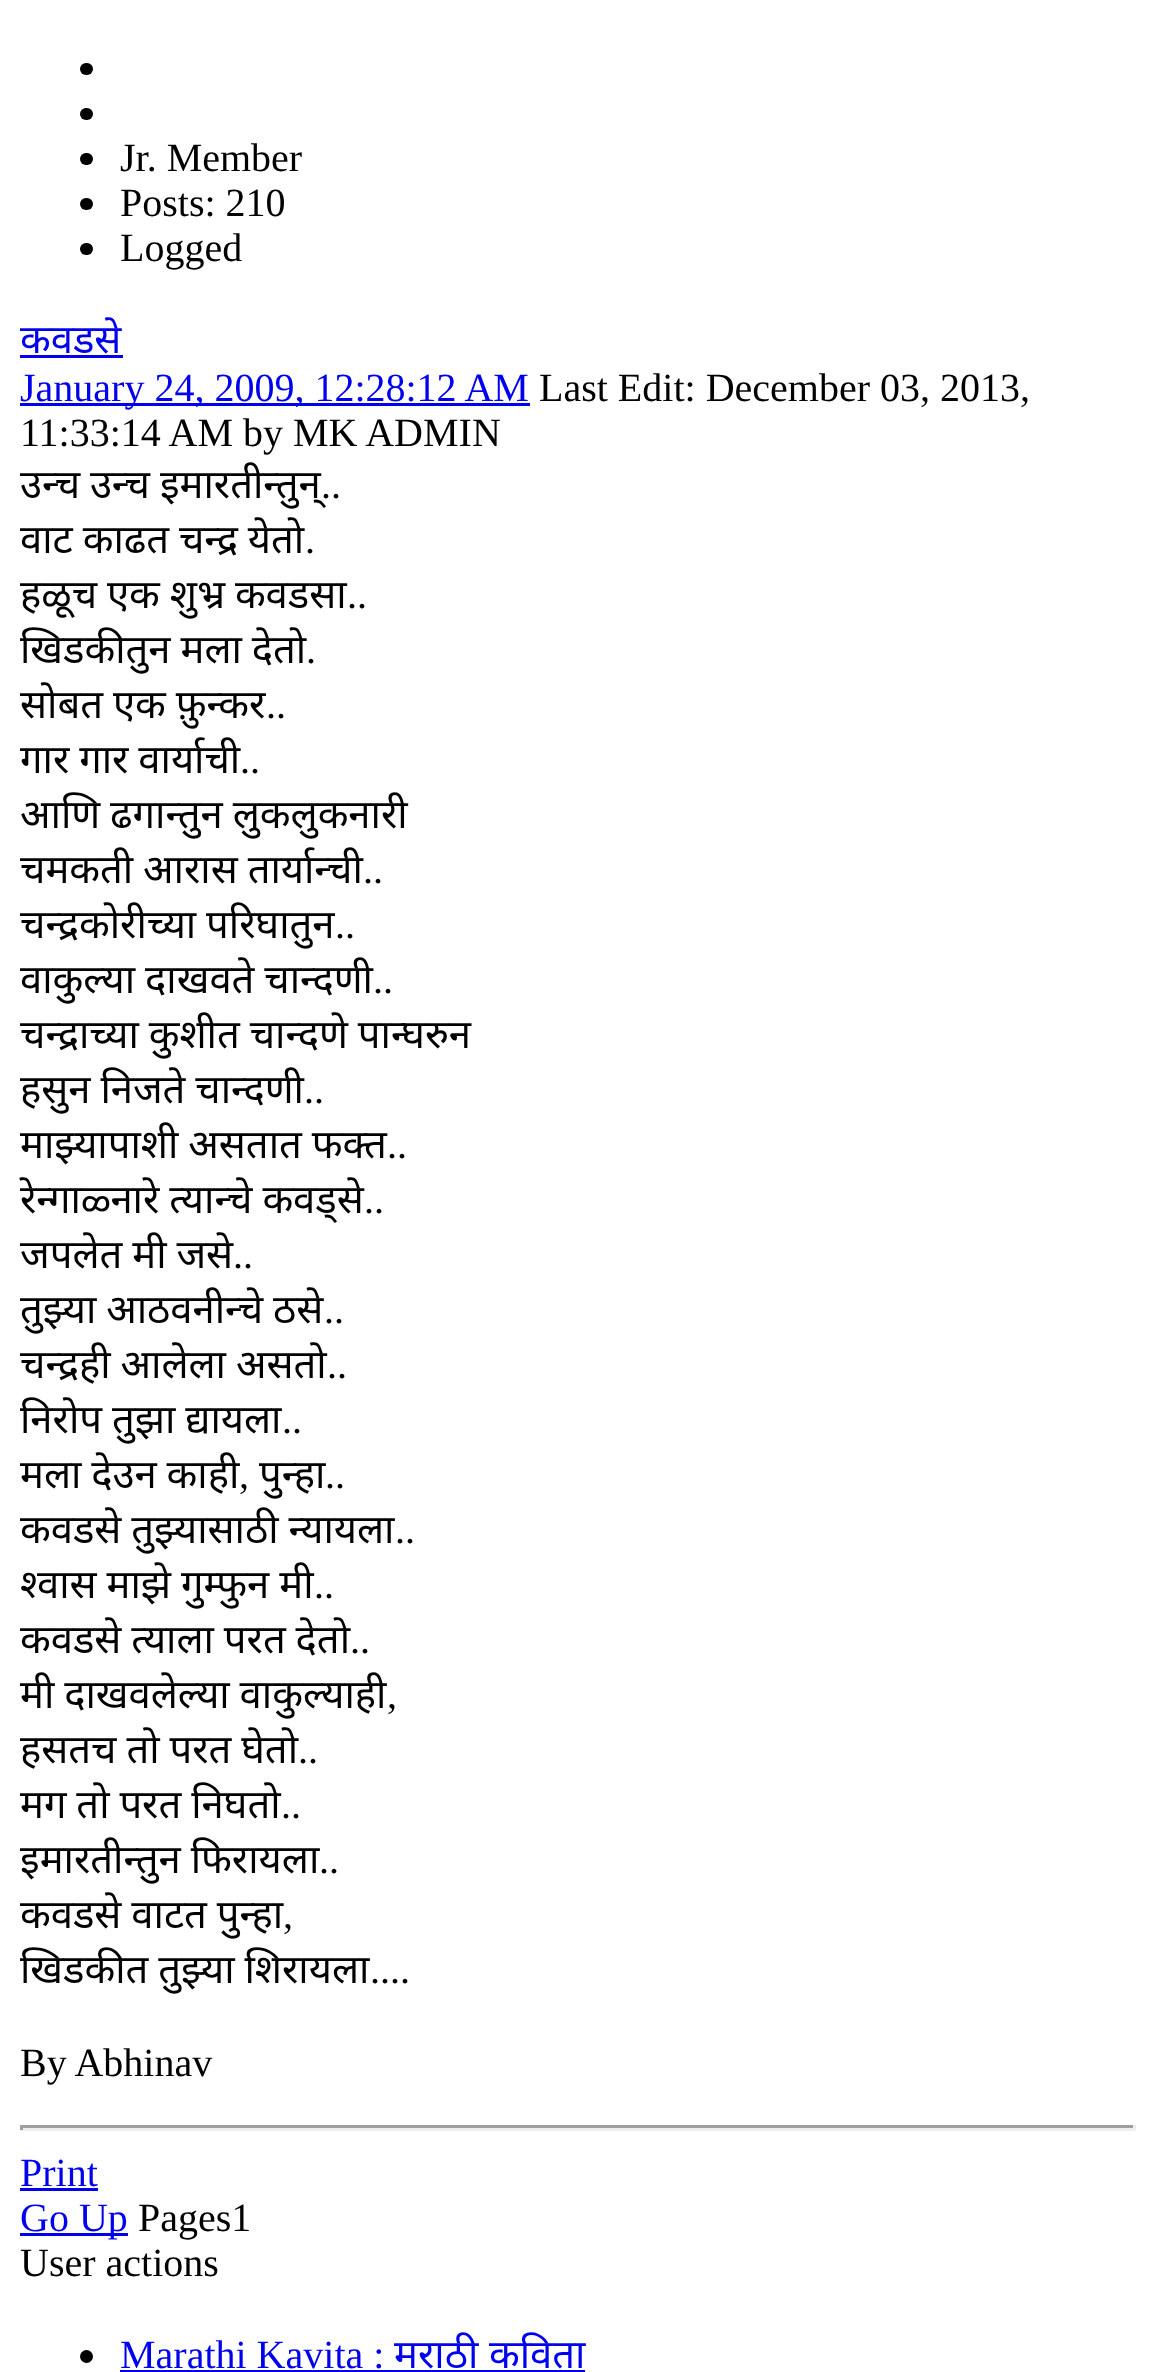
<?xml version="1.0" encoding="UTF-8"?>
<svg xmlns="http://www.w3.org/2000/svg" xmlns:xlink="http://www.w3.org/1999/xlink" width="1155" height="2372">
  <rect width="100%" height="100%" fill="#ffffff" />
  <rect x="80" y="63" width="13" height="12" rx="6" fill="#000000" />
  <rect x="80" y="108" width="13" height="12" rx="6" fill="#000000" />
  <rect x="80" y="153" width="13" height="12" rx="6" fill="#000000" />
  <rect x="80" y="198" width="13" height="12" rx="6" fill="#000000" />
  <rect x="80" y="243" width="13" height="12" rx="6" fill="#000000" />
  <rect x="20" y="355" width="103" height="3" fill="#0000ee" />
  <rect x="20" y="403" width="510" height="3" fill="#0000ee" />
  <rect x="20" y="2125" width="1115" height="3" fill="#9f9f9f" />
  <rect x="1133" y="2125" width="3" height="5" fill="#eeeeee" />
  <rect x="20" y="2128" width="1115" height="3" fill="#eeeeee" />
  <rect x="20" y="2125" width="3" height="5" fill="#9f9f9f" />
  <rect x="20" y="2188" width="78" height="3" fill="#0000ee" />
  <rect x="20" y="2233" width="108" height="3" fill="#0000ee" />
  <circle cx="86.5" cy="2356.5" r="6.5" fill="#000000" />
  <rect x="120" y="2370" width="465" height="2" fill="#0000ee" />
  <text x="120" y="171" style="font-family: Liberation Serif; font-size: 40px; fill: #000000">Jr. Member</text>
  <text x="120" y="216" style="font-family: Liberation Serif; font-size: 40px; fill: #000000">Posts: 210</text>
  <text x="120" y="261" style="font-family: Liberation Serif; font-size: 40px; fill: #000000">Logged</text>
  <text x="20" y="353" style="font-family: Noto Sans; font-size: 40px; fill: #0000ee">कवडसे</text>
  <text x="20" y="401" style="font-family: Liberation Serif; font-size: 40px; fill: #0000ee">January 24, 2009, 12:28:12 AM</text>
  <text x="539" y="401" style="font-family: Liberation Serif; font-size: 40px; fill: #000000">Last Edit: December 03, 2013,</text>
  <text x="20" y="446" style="font-family: Liberation Serif; font-size: 40px; fill: #000000">11:33:14 AM by MK ADMIN</text>
  <text x="20" y="498" word-spacing="-0.5" style="font-family: Noto Sans; font-size: 40px; fill: #000000">उन्च उन्च इमारतीन्तुन्</text>
  <text x="321" y="498" style="font-family: Liberation Serif; font-size: 40px; fill: #000000">..</text>
  <text x="20" y="553" word-spacing="-0.5" style="font-family: Noto Sans; font-size: 40px; fill: #000000">वाट काढत चन्द्र येतो</text>
  <text x="305" y="553" style="font-family: Liberation Serif; font-size: 40px; fill: #000000">.</text>
  <text x="20" y="608" word-spacing="-0.5" style="font-family: Noto Sans; font-size: 40px; fill: #000000">हळूच एक शुभ्र कवडसा</text>
  <text x="347" y="608" style="font-family: Liberation Serif; font-size: 40px; fill: #000000">..</text>
  <text x="20" y="663" word-spacing="-0.5" style="font-family: Noto Sans; font-size: 40px; fill: #000000">खिडकीतुन मला देतो</text>
  <text x="306" y="663" style="font-family: Liberation Serif; font-size: 40px; fill: #000000">.</text>
  <text x="20" y="718" word-spacing="-0.5" style="font-family: Noto Sans; font-size: 40px; fill: #000000">सोबत एक फ़ुन्कर</text>
  <text x="266" y="718" style="font-family: Liberation Serif; font-size: 40px; fill: #000000">..</text>
  <text x="20" y="773" word-spacing="-0.5" style="font-family: Noto Sans; font-size: 40px; fill: #000000">गार गार वार्याची</text>
  <text x="240" y="773" style="font-family: Liberation Serif; font-size: 40px; fill: #000000">..</text>
  <text x="20" y="828" word-spacing="-0.5" style="font-family: Noto Sans; font-size: 40px; fill: #000000">आणि ढगान्तुन लुकलुकनारी</text>
  <text x="20" y="883" word-spacing="-0.5" style="font-family: Noto Sans; font-size: 40px; fill: #000000">चमकती आरास तार्यान्ची</text>
  <text x="363" y="883" style="font-family: Liberation Serif; font-size: 40px; fill: #000000">..</text>
  <text x="20" y="938" word-spacing="-0.5" style="font-family: Noto Sans; font-size: 40px; fill: #000000">चन्द्रकोरीच्या परिघातुन</text>
  <text x="335" y="938" style="font-family: Liberation Serif; font-size: 40px; fill: #000000">..</text>
  <text x="20" y="993" word-spacing="-0.5" style="font-family: Noto Sans; font-size: 40px; fill: #000000">वाकुल्या दाखवते चान्दणी</text>
  <text x="373" y="993" style="font-family: Liberation Serif; font-size: 40px; fill: #000000">..</text>
  <text x="20" y="1048" word-spacing="-0.5" style="font-family: Noto Sans; font-size: 40px; fill: #000000">चन्द्राच्या कुशीत चान्दणे पान्घरुन</text>
  <text x="20" y="1103" word-spacing="-0.5" style="font-family: Noto Sans; font-size: 40px; fill: #000000">हसुन निजते चान्दणी</text>
  <text x="304" y="1103" style="font-family: Liberation Serif; font-size: 40px; fill: #000000">..</text>
  <text x="20" y="1158" word-spacing="-0.5" style="font-family: Noto Sans; font-size: 40px; fill: #000000">माझ्यापाशी असतात फक्त</text>
  <text x="387" y="1158" style="font-family: Liberation Serif; font-size: 40px; fill: #000000">..</text>
  <text x="20" y="1213" word-spacing="-0.5" style="font-family: Noto Sans; font-size: 40px; fill: #000000">रेन्गाळ्नारे त्यान्चे कवड्से</text>
  <text x="364" y="1213" style="font-family: Liberation Serif; font-size: 40px; fill: #000000">..</text>
  <text x="20" y="1268" word-spacing="-0.5" style="font-family: Noto Sans; font-size: 40px; fill: #000000">जपलेत मी जसे</text>
  <text x="233" y="1268" style="font-family: Liberation Serif; font-size: 40px; fill: #000000">..</text>
  <text x="20" y="1323" word-spacing="-0.5" style="font-family: Noto Sans; font-size: 40px; fill: #000000">तुझ्या आठवनीन्चे ठसे</text>
  <text x="324" y="1323" style="font-family: Liberation Serif; font-size: 40px; fill: #000000">..</text>
  <text x="20" y="1378" word-spacing="-0.5" style="font-family: Noto Sans; font-size: 40px; fill: #000000">चन्द्रही आलेला असतो</text>
  <text x="327" y="1378" style="font-family: Liberation Serif; font-size: 40px; fill: #000000">..</text>
  <text x="20" y="1433" word-spacing="-0.5" style="font-family: Noto Sans; font-size: 40px; fill: #000000">निरोप तुझा द्यायला</text>
  <text x="282" y="1433" style="font-family: Liberation Serif; font-size: 40px; fill: #000000">..</text>
  <text x="20" y="1488" word-spacing="-0.5" style="font-family: Noto Sans; font-size: 40px; fill: #000000">मला देउन काही</text>
  <text x="239" y="1488" style="font-family: Liberation Serif; font-size: 40px; fill: #000000">,</text>
  <text x="259" y="1488" style="font-family: Noto Sans; font-size: 40px; fill: #000000">पुन्हा</text>
  <text x="325" y="1488" style="font-family: Liberation Serif; font-size: 40px; fill: #000000">..</text>
  <text x="20" y="1543" word-spacing="-0.5" style="font-family: Noto Sans; font-size: 40px; fill: #000000">कवडसे तुझ्यासाठी न्यायला</text>
  <text x="395" y="1543" style="font-family: Liberation Serif; font-size: 40px; fill: #000000">..</text>
  <text x="20" y="1598" word-spacing="-0.5" style="font-family: Noto Sans; font-size: 40px; fill: #000000">श्वास माझे गुम्फुन मी</text>
  <text x="314" y="1598" style="font-family: Liberation Serif; font-size: 40px; fill: #000000">..</text>
  <text x="20" y="1653" word-spacing="-0.5" style="font-family: Noto Sans; font-size: 40px; fill: #000000">कवडसे त्याला परत देतो</text>
  <text x="350" y="1653" style="font-family: Liberation Serif; font-size: 40px; fill: #000000">..</text>
  <text x="20" y="1708" word-spacing="-0.5" style="font-family: Noto Sans; font-size: 40px; fill: #000000">मी दाखवलेल्या वाकुल्याही</text>
  <text x="387" y="1708" style="font-family: Liberation Serif; font-size: 40px; fill: #000000">,</text>
  <text x="20" y="1763" word-spacing="-0.5" style="font-family: Noto Sans; font-size: 40px; fill: #000000">हसतच तो परत घेतो</text>
  <text x="298" y="1763" style="font-family: Liberation Serif; font-size: 40px; fill: #000000">..</text>
  <text x="20" y="1818" word-spacing="-0.5" style="font-family: Noto Sans; font-size: 40px; fill: #000000">मग तो परत निघतो</text>
  <text x="281" y="1818" style="font-family: Liberation Serif; font-size: 40px; fill: #000000">..</text>
  <text x="20" y="1873" word-spacing="-0.5" style="font-family: Noto Sans; font-size: 40px; fill: #000000">इमारतीन्तुन फिरायला</text>
  <text x="319" y="1873" style="font-family: Liberation Serif; font-size: 40px; fill: #000000">..</text>
  <text x="20" y="1928" word-spacing="-0.5" style="font-family: Noto Sans; font-size: 40px; fill: #000000">कवडसे वाटत पुन्हा</text>
  <text x="283" y="1928" style="font-family: Liberation Serif; font-size: 40px; fill: #000000">,</text>
  <text x="20" y="1983" word-spacing="-0.5" style="font-family: Noto Sans; font-size: 40px; fill: #000000">खिडकीत तुझ्या शिरायला</text>
  <text x="370" y="1983" style="font-family: Liberation Serif; font-size: 40px; fill: #000000">....</text>
  <text x="20" y="2076" style="font-family: Liberation Serif; font-size: 40px; fill: #000000">By Abhinav</text>
  <text x="20" y="2186" style="font-family: Liberation Serif; font-size: 40px; fill: #0000ee">Print</text>
  <text x="20" y="2231" style="font-family: Liberation Serif; font-size: 40px; fill: #0000ee">Go Up</text>
  <text x="138" y="2231" style="font-family: Liberation Serif; font-size: 40px; fill: #000000">Pages1</text>
  <text x="20" y="2276" style="font-family: Liberation Serif; font-size: 40px; fill: #000000">User actions</text>
  <text x="120" y="2368" style="font-family: Liberation Serif; font-size: 40px; fill: #0000ee">Marathi Kavita :</text>
  <text x="394" y="2368" style="font-family: Noto Sans; font-size: 40px; fill: #0000ee">मराठी</text>
  <text x="489" y="2368" style="font-family: Noto Sans; font-size: 40px; fill: #0000ee">कविता</text>
</svg>
